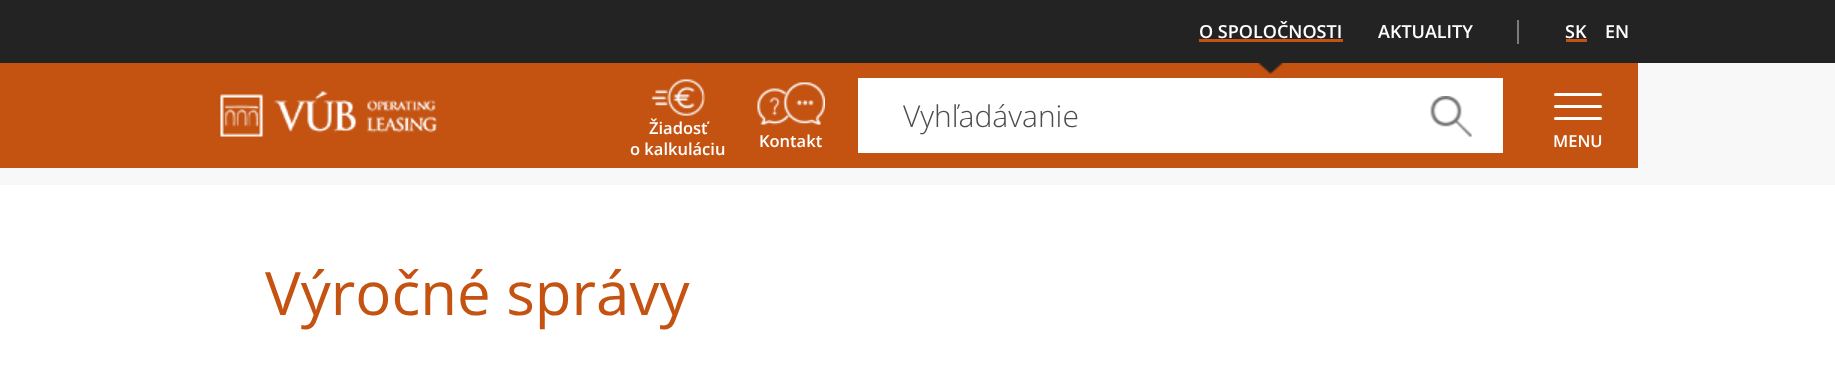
<?xml version="1.0" encoding="UTF-8"?>
<svg xmlns="http://www.w3.org/2000/svg" xmlns:xlink="http://www.w3.org/1999/xlink" width="1835" height="372">
  <rect width="100%" height="100%" fill="#ffffff" />
  <rect width="1835" height="63" fill="#232323" />
  <rect x="1199" y="39" width="144" height="3" fill="#c45312" />
  <rect y="63" width="1835" height="122" fill="#f8f8f8" />
  <rect y="63" width="1638" height="105" fill="#c45312" />
  <image x="1258" y="63" width="25" height="11" xlink:href="image1.png" />
  <rect x="1517" y="20" width="2" height="24" fill="#7b7b7b" />
  <rect x="1566" y="39" width="21" height="3" fill="#c45312" />
  <image x="220" y="91" width="217" height="46" xlink:href="image2.png" />
  <image x="651" y="79" width="54" height="37" xlink:href="image3.png" />
  <image x="757" y="82" width="68" height="43" xlink:href="image4.png" />
  <rect x="858" y="78" width="645" height="75" fill="#ffffff" />
  <image x="1430" y="96" width="42" height="41" xlink:href="image5.png" />
  <rect x="1554" y="93" width="48" height="3" rx="1.5" fill="#ffffff" />
  <rect x="1554" y="105" width="48" height="3" rx="1.5" fill="#ffffff" />
  <rect x="1554" y="117" width="48" height="3" rx="1.5" fill="#ffffff" />
  <text x="1199" y="38" style="font-family: Open Sans; font-size: 18px; font-weight: 600; fill: #ffffff">O SPOLOČNOSTI</text>
  <text x="1378" y="38" style="font-family: Open Sans; font-size: 18px; font-weight: 600; fill: #ffffff">AKTUALITY</text>
  <text x="1565" y="38" style="font-family: Open Sans; font-size: 18px; font-weight: 600; fill: #ffffff">SK</text>
  <text x="1605" y="38" style="font-family: Open Sans; font-size: 18px; font-weight: 600; fill: #ffffff">EN</text>
  <text x="649" y="134" style="font-family: Open Sans; font-size: 16.5px; font-weight: 600; fill: #ffffff">Žiadosť</text>
  <text x="630" y="155" style="font-family: Open Sans; font-size: 16.5px; font-weight: 600; fill: #ffffff">o kalkuláciu</text>
  <text x="759" y="147" style="font-family: Open Sans; font-size: 16.5px; font-weight: 600; fill: #ffffff">Kontakt</text>
  <text x="903" y="127" style="font-family: Open Sans; font-size: 30px; font-weight: 300; fill: #4d4d4d">Vyhľadávanie</text>
  <text x="1553" y="147" style="font-family: Open Sans; font-size: 16.5px; font-weight: 600; fill: #ffffff">MENU</text>
  <text x="265" y="315" style="font-family: Open Sans; font-size: 60px; fill: #c45312">Výročné správy</text>
</svg>
